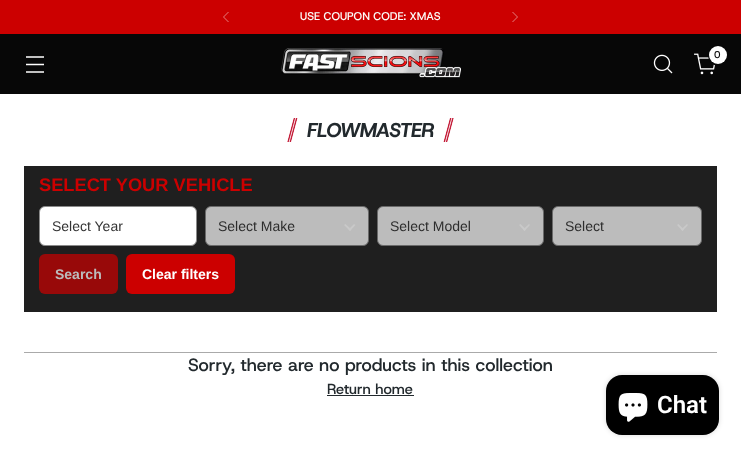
<?xml version="1.0" encoding="UTF-8"?>
<svg xmlns="http://www.w3.org/2000/svg" xmlns:xlink="http://www.w3.org/1999/xlink" width="741" height="456">
  <rect width="100%" height="100%" fill="#ffffff" />
  <rect width="741" height="34" fill="#cc0000" />
  <path d="M 228.5 12 l -5 5 l 5 5" fill="none" stroke="#e47e7d" />
  <path d="M 512.5 22 l 5 -5 l -5 -5" fill="none" stroke="#e47e7d" />
  <rect y="34" width="741" height="60" fill="#070707" />
  <image x="281" y="48" width="180" height="30" xlink:href="image1.png" />
  <image x="653" y="54" width="20" height="20" xlink:href="image2.png" />
  <image x="694" y="53" width="22" height="22" xlink:href="image3.png" />
  <circle cx="718.5" cy="55.5" r="9.5" fill="none" stroke="#070707" stroke-width="2" />
  <circle cx="718" cy="55" r="9" fill="#ffffff" />
  <path d="M 26 64.5 h 18 m -18 -7.5 h 18 m -18 15 h 18" fill="none" stroke="#ffffff" stroke-width="1.3" />
  <image x="287" y="118" width="11" height="24" xlink:href="image4.png" />
  <image x="443" y="118" width="11" height="24" xlink:href="image5.png" />
  <rect x="24" y="166" width="693" height="146" fill="#1f1f1f" />
  <rect x="39.5" y="206.5" width="157" height="39" rx="5.5" fill="#ffffff" stroke="#8a8a8a" />
  <path d="M 354 224 l 1.5 1 l -5.5 6 l -1.5 -1.5 z" fill="#4a4a4a" />
  <path d="M 345.5 224 l 6 5.5 l -1.5 1.5 l -6 -6 z" fill="#4a4a4a" />
  <rect x="205.5" y="206.5" width="163" height="39" rx="5.5" fill="#ffffff" fill-opacity="0.7" stroke="#6a6a6a" />
  <path d="M 529 224 l 1 1 l -5.5 6 l -1.5 -1.5 z" fill="#4a4a4a" />
  <path d="M 520.5 224 l 5.5 5.5 l -1.5 1.5 l -5.5 -6 z" fill="#4a4a4a" />
  <rect x="377.5" y="206.5" width="166" height="39" rx="5.5" fill="#ffffff" fill-opacity="0.7" stroke="#6a6a6a" />
  <path d="M 687 224 l 1 1 l -5.5 6 l -1.5 -1.5 z" fill="#4a4a4a" />
  <path d="M 678.5 224 l 5.5 5.5 l -1.5 1.5 l -5.5 -6 z" fill="#4a4a4a" />
  <rect x="552.5" y="206.5" width="149" height="39" rx="5.5" fill="#ffffff" fill-opacity="0.7" stroke="#6a6a6a" />
  <rect x="39" y="254" width="79" height="40" rx="6" fill="#980909" />
  <rect x="126" y="254" width="109" height="40" rx="6" fill="#cc0000" />
  <rect x="24" y="352" width="693" height="1" fill="#aaaaaa" />
  <rect x="327" y="395" width="87" height="1" fill="#22292d" />
  <rect x="606" y="375" width="113" height="60" rx="16" fill="#000000" fill-opacity="0.15" filter="blur(2.5px)" />
  <rect x="606" y="375" width="113" height="60" rx="16" fill="#000000" />
  <image x="618" y="393" width="30" height="29" xlink:href="image6.png" />
  <text x="300" y="20" style="font-family: Host Grotesk; font-size: 11.25px; font-weight: 500; fill: #fcfcf9">USE COUPON CODE: XMAS</text>
  <text x="714" y="58" style="font-family: Host Grotesk; font-size: 10px; font-weight: 500; fill: #070707">0</text>
  <text x="307" y="137" style="font-family: Host Grotesk; font-size: 20px; font-weight: 800; font-style: italic; letter-spacing: -0.5px; fill: #22292d">FLOWMASTER</text>
  <text x="39" y="191" style="font-family: Liberation Sans; font-size: 18.25px; font-weight: bold; fill: #cc0000">SELECT YOUR VEHICLE</text>
  <text x="52" y="231" style="font-family: Liberation Sans; font-size: 14px; fill: #333333">Select Year</text>
  <text x="218" y="231" style="font-family: Liberation Sans; font-size: 14px; fill: #2d2d2d">Select Make</text>
  <text x="390" y="231" style="font-family: Liberation Sans; font-size: 14px; fill: #2d2d2d">Select Model</text>
  <text x="565" y="231" style="font-family: Liberation Sans; font-size: 14px; fill: #2d2d2d">Select</text>
  <text x="55" y="279" style="font-family: Liberation Sans; font-size: 14px; font-weight: bold; fill: #bcbcbc">Search</text>
  <text x="142" y="279" style="font-family: Liberation Sans; font-size: 14px; font-weight: bold; fill: #ffffff">Clear filters</text>
  <text x="188" y="371" style="font-family: Host Grotesk; font-size: 17.75px; font-weight: 500; fill: #22292d">Sorry, there are no products in this collection</text>
  <text x="327" y="394" style="font-family: Host Grotesk; font-size: 14.5px; font-weight: 500; fill: #22292d">Return home</text>
  <text x="657" y="413" style="font-family: Roboto; font-size: 24px; font-weight: 600; fill: #ffffff">Chat</text>
</svg>
